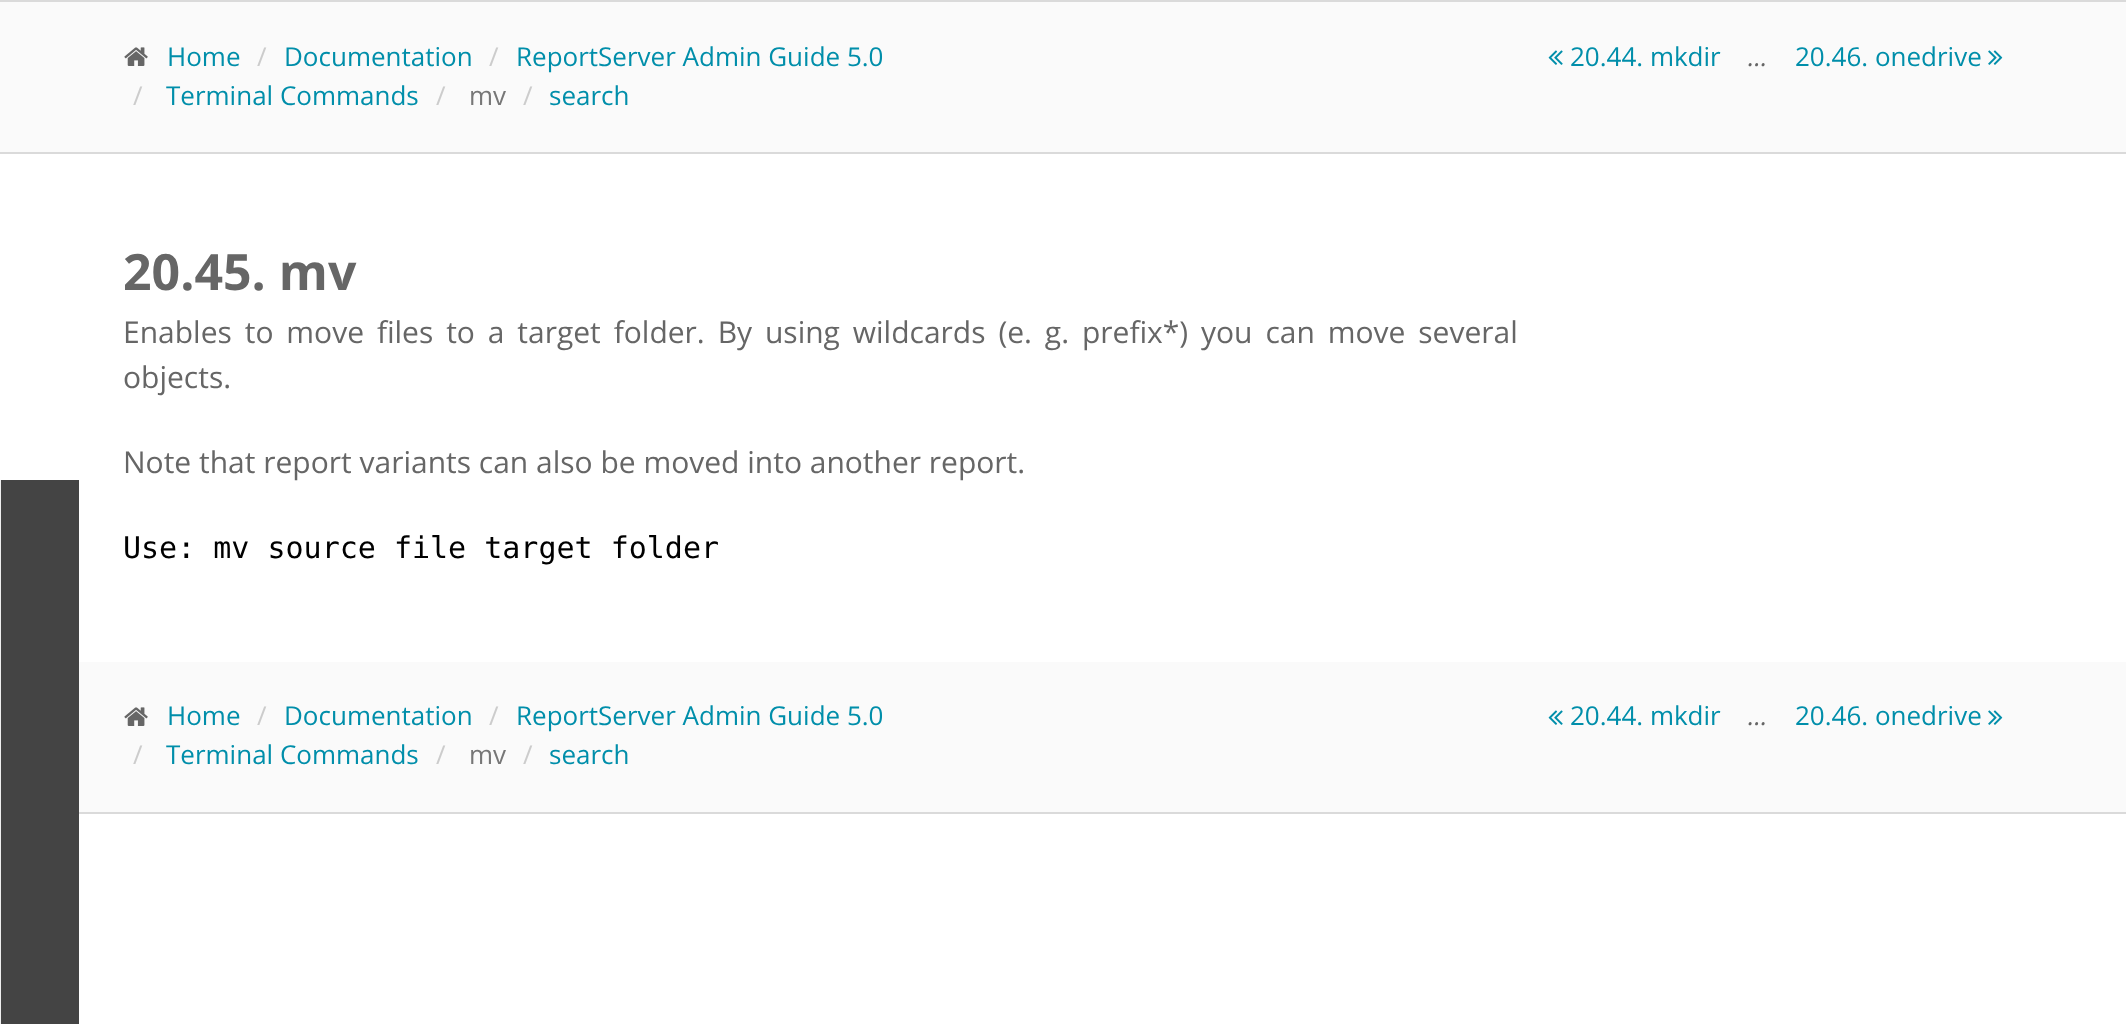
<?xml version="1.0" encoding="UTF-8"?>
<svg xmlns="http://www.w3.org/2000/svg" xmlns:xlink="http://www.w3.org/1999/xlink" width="2126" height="1024">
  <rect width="100%" height="100%" fill="#ffffff" />
  <rect x="1" y="480" width="78" height="544" fill="#444444" />
  <rect y="480" width="1" height="544" fill="#eeeeee" />
  <rect width="2126" height="2" fill="#dadada" />
  <rect y="2" width="2126" height="150" fill="#fafafa" />
  <rect y="152" width="2126" height="2" fill="#dadada" />
  <image x="124" y="47" width="24" height="19" xlink:href="image1.png" />
  <image x="1548" y="50" width="15" height="15" xlink:href="image2.png" />
  <image x="1988" y="50" width="15" height="15" xlink:href="image3.png" />
  <rect x="79" y="662" width="2047" height="150" fill="#fafafa" />
  <rect x="79" y="812" width="2047" height="2" fill="#dadada" />
  <image x="124" y="707" width="24" height="19" xlink:href="image1.png" />
  <image x="1548" y="710" width="15" height="15" xlink:href="image2.png" />
  <image x="1988" y="710" width="15" height="15" xlink:href="image3.png" />
  <text x="167" y="66" style="font-family: Open Sans; font-size: 26px; fill: #008eaa">Home</text>
  <text x="257" y="66" style="font-family: Open Sans; font-size: 26px; fill: #cccccc">/</text>
  <text x="284" y="66" style="font-family: Open Sans; font-size: 26px; fill: #008eaa">Documentation</text>
  <text x="489" y="66" style="font-family: Open Sans; font-size: 26px; fill: #cccccc">/</text>
  <text x="516" y="66" style="font-family: Open Sans; font-size: 26px; fill: #008eaa">ReportServer Admin Guide 5.0</text>
  <text x="133" y="105" style="font-family: Open Sans; font-size: 26px; fill: #cccccc">/</text>
  <text x="166" y="105" style="font-family: Open Sans; font-size: 26px; fill: #008eaa">Terminal Commands</text>
  <text x="436" y="105" style="font-family: Open Sans; font-size: 26px; fill: #cccccc">/</text>
  <text x="469" y="105" style="font-family: Open Sans; font-size: 26px; fill: #777777">mv</text>
  <text x="523" y="105" style="font-family: Open Sans; font-size: 26px; fill: #cccccc">/</text>
  <text x="549" y="105" style="font-family: Open Sans; font-size: 26px; fill: #008eaa">search</text>
  <text x="1570" y="66" style="font-family: Open Sans; font-size: 26px; fill: #008eaa">20.44. mkdir</text>
  <text x="1748" y="66" style="font-family: Open Sans; font-size: 26px; font-style: italic; fill: #666666">...</text>
  <text x="1795" y="66" style="font-family: Open Sans; font-size: 26px; fill: #008eaa">20.46. onedrive</text>
  <text x="123" y="290" style="font-family: Open Sans; font-size: 50px; font-weight: bold; fill: #666666">20.45. mv</text>
  <text x="123" y="343" word-spacing="5.1" style="font-family: Open Sans; font-size: 30px; fill: #666666">Enables to move files to a target folder. By using wildcards (e. g. prefix*) you can move several</text>
  <text x="123" y="388" style="font-family: Open Sans; font-size: 30px; fill: #666666">objects.</text>
  <text x="123" y="473" style="font-family: Open Sans; font-size: 30px; fill: #666666">Note that report variants can also be moved into another report.</text>
  <text x="123" y="558" style="font-family: DejaVu Sans Mono; font-size: 30px; fill: #000000">Use: mv source file target folder</text>
  <text x="167" y="725" style="font-family: Open Sans; font-size: 26px; fill: #008eaa">Home</text>
  <text x="257" y="725" style="font-family: Open Sans; font-size: 26px; fill: #cccccc">/</text>
  <text x="284" y="725" style="font-family: Open Sans; font-size: 26px; fill: #008eaa">Documentation</text>
  <text x="489" y="725" style="font-family: Open Sans; font-size: 26px; fill: #cccccc">/</text>
  <text x="516" y="725" style="font-family: Open Sans; font-size: 26px; fill: #008eaa">ReportServer Admin Guide 5.0</text>
  <text x="133" y="764" style="font-family: Open Sans; font-size: 26px; fill: #cccccc">/</text>
  <text x="166" y="764" style="font-family: Open Sans; font-size: 26px; fill: #008eaa">Terminal Commands</text>
  <text x="436" y="764" style="font-family: Open Sans; font-size: 26px; fill: #cccccc">/</text>
  <text x="469" y="764" style="font-family: Open Sans; font-size: 26px; fill: #777777">mv</text>
  <text x="523" y="764" style="font-family: Open Sans; font-size: 26px; fill: #cccccc">/</text>
  <text x="549" y="764" style="font-family: Open Sans; font-size: 26px; fill: #008eaa">search</text>
  <text x="1570" y="725" style="font-family: Open Sans; font-size: 26px; fill: #008eaa">20.44. mkdir</text>
  <text x="1748" y="725" style="font-family: Open Sans; font-size: 26px; font-style: italic; fill: #666666">...</text>
  <text x="1795" y="725" style="font-family: Open Sans; font-size: 26px; fill: #008eaa">20.46. onedrive</text>
</svg>
